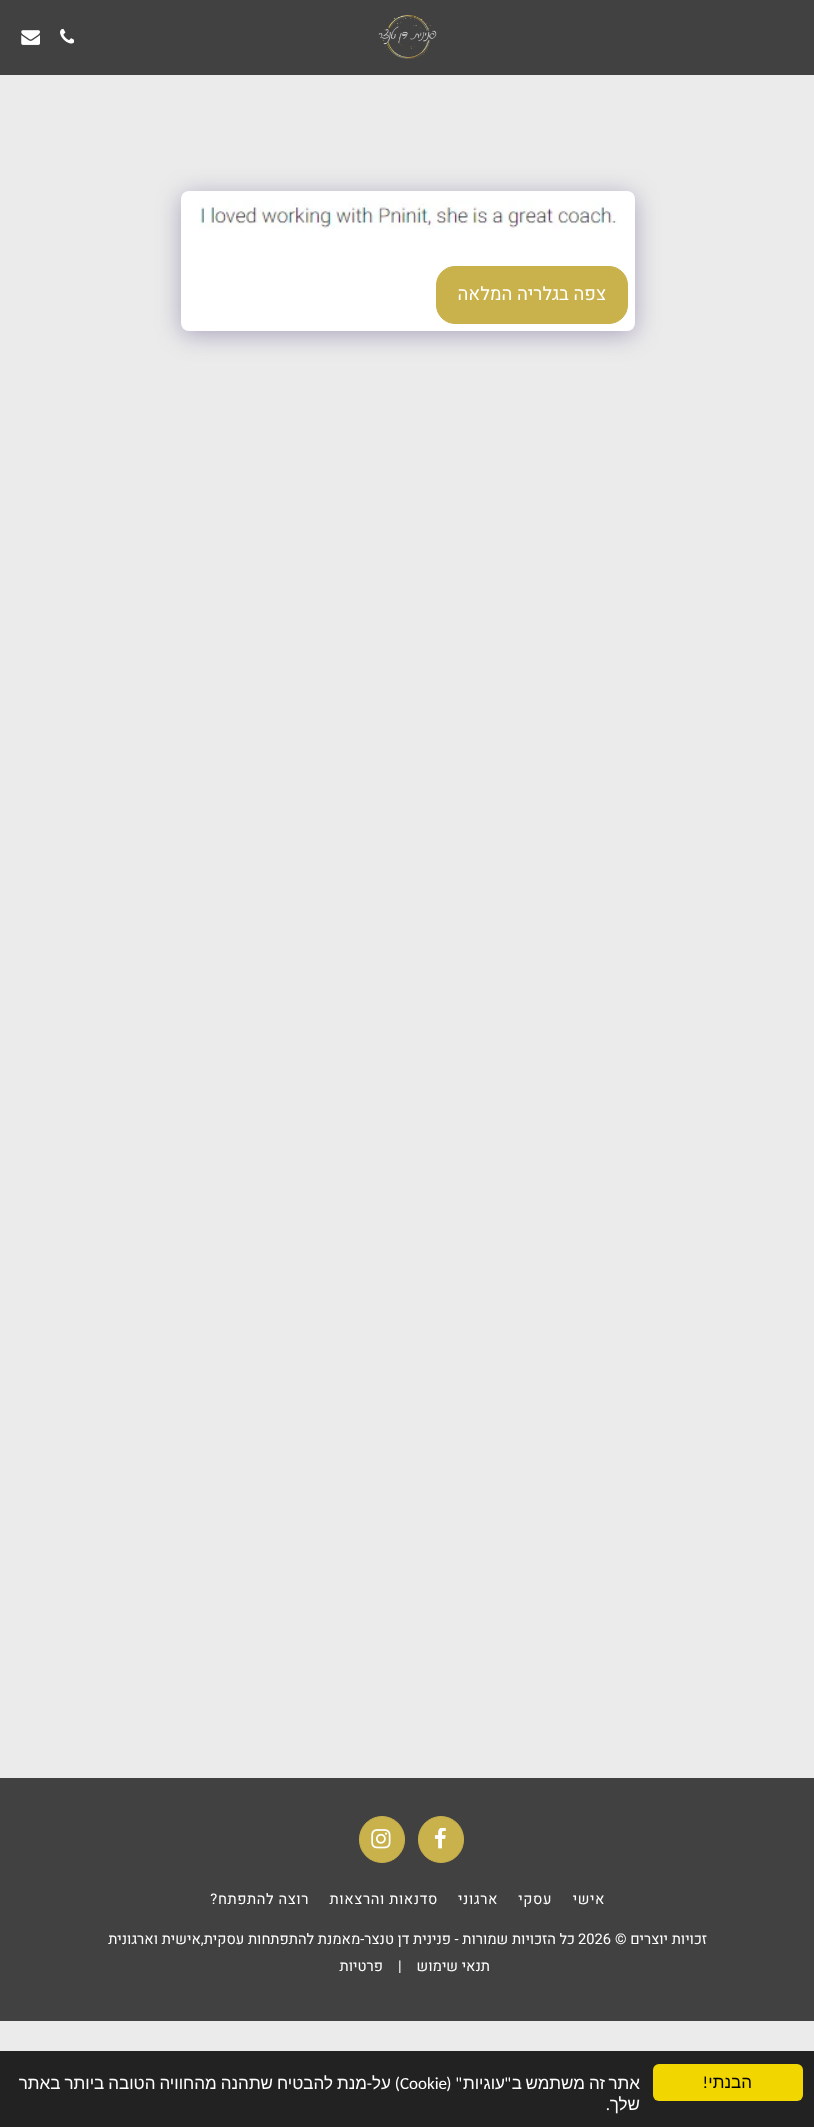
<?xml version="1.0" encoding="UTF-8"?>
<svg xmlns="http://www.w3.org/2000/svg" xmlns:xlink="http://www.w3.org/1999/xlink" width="814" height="2127">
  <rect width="100%" height="100%" fill="#ebebeb" />
  <rect width="814" height="75" fill="#414141" />
  <image x="378" y="15" width="59" height="44" xlink:href="image1.png" />
  <image x="60" y="28" width="14" height="16" xlink:href="image2.png" />
  <image x="21" y="30" width="19" height="15" xlink:href="image3.png" />
  <rect x="181" y="195" width="454" height="140" rx="8" fill="#4d3f7a" fill-opacity="0.4" filter="blur(12.5px)" />
  <rect x="181" y="191" width="454" height="140" rx="8" fill="#ffffff" />
  <image x="199" y="199" width="420" height="30" xlink:href="image4.png" />
  <rect x="436.5" y="266.5" width="191" height="57" rx="18.5" fill="#c9b14b" stroke="#c9b14b" />
  <rect y="1778" width="814" height="243" fill="#414141" />
  <rect x="418.5" y="1816.5" width="45" height="46" rx="22.5" fill="#c9b14b" stroke="#c9b14b" />
  <image x="434" y="1828" width="12" height="21" xlink:href="image5.png" />
  <rect x="359.5" y="1816.5" width="45" height="46" rx="22.5" fill="#c9b14b" stroke="#c9b14b" />
  <image x="371" y="1829" width="20" height="20" xlink:href="image6.png" />
  <rect y="2051" width="814" height="76" fill="#222222" />
  <rect x="653" y="2064" width="150" height="37" rx="6" fill="#f1d600" />
  <text x="606" y="300" style="font-family: Heebo; font-size: 18.5px; direction: rtl; fill: #ffffff">צפה בגלריה המלאה</text>
  <text x="605" y="1904" style="font-family: Heebo; font-size: 14.7px; letter-spacing: 0.6px; direction: rtl; fill: #ffffff">אישי</text>
  <text x="552" y="1904" style="font-family: Heebo; font-size: 14.7px; letter-spacing: 0.6px; direction: rtl; fill: #ffffff">עסקי</text>
  <text x="498" y="1904" style="font-family: Heebo; font-size: 14.7px; letter-spacing: 0.6px; direction: rtl; fill: #ffffff">ארגוני</text>
  <text x="438" y="1904" style="font-family: Heebo; font-size: 14.7px; letter-spacing: 0.6px; direction: rtl; fill: #ffffff">סדנאות והרצאות</text>
  <text x="309" y="1904" style="font-family: Heebo; font-size: 14.7px; letter-spacing: 0.6px; direction: rtl; fill: #ffffff">רוצה להתפתח?</text>
  <text x="707" y="1944" style="font-family: Heebo; font-size: 14.7px; direction: rtl; fill: #ffffff">זכויות יוצרים ©</text>
  <text x="578" y="1944" style="font-family: Heebo; font-size: 14.7px; fill: #ffffff">2026</text>
  <text x="575" y="1944" style="font-family: Heebo; font-size: 14.7px; direction: rtl; fill: #ffffff">כל הזכויות שמורות -</text>
  <text x="451" y="1944" style="font-family: Heebo; font-size: 14.7px; direction: rtl; fill: #ffffff">פנינית דן טנצר-מאמנת להתפתחות עסקית,אישית וארגונית</text>
  <text x="490" y="1971" style="font-family: Heebo; font-size: 14.7px; direction: rtl; fill: #ffffff">תנאי שימוש</text>
  <text x="398" y="1971" style="font-family: Heebo; font-size: 14.7px; fill: #ffffff">|</text>
  <text x="383" y="1971" style="font-family: Heebo; font-size: 14.7px; direction: rtl; fill: #ffffff">פרטיות</text>
  <text x="752" y="2088" style="font-family: Liberation Sans; font-size: 17px; direction: rtl; fill: #000000">הבנתי</text>
  <text x="708" y="2088" style="font-family: Carlito; font-size: 17px; direction: rtl; fill: #000000">!</text>
  <text x="640" y="2089" style="font-family: Liberation Sans; font-size: 17px; direction: rtl; fill: #ffffff">אתר</text>
  <text x="605" y="2089" style="font-family: Liberation Sans; font-size: 17px; direction: rtl; fill: #ffffff">זה</text>
  <text x="585" y="2089" style="font-family: Liberation Sans; font-size: 17px; direction: rtl; fill: #ffffff">משתמש</text>
  <text x="522" y="2089" style="font-family: Liberation Sans; font-size: 17px; direction: rtl; fill: #ffffff">ב</text>
  <text x="511" y="2089" style="font-family: Carlito; font-size: 17px; direction: rtl; fill: #ffffff">"</text>
  <text x="505" y="2089" style="font-family: Liberation Sans; font-size: 17px; direction: rtl; fill: #ffffff">עוגיות</text>
  <text x="462" y="2089" style="font-family: Carlito; font-size: 17px; direction: rtl; fill: #ffffff">" (</text>
  <text x="400" y="2089" style="font-family: Carlito; font-size: 17px; fill: #ffffff">Cookie</text>
  <text x="400" y="2089" style="font-family: Carlito; font-size: 17px; direction: rtl; fill: #ffffff">)</text>
  <text x="391" y="2089" style="font-family: Liberation Sans; font-size: 17px; direction: rtl; fill: #ffffff">על</text>
  <text x="372" y="2089" style="font-family: Carlito; font-size: 17px; direction: rtl; fill: #ffffff">-</text>
  <text x="367" y="2089" word-spacing="-0.75" style="font-family: Liberation Sans; font-size: 17px; direction: rtl; fill: #ffffff">מנת להבטיח שתהנה מהחוויה הטובה ביותר באתר</text>
  <text x="640" y="2110" style="font-family: Liberation Sans; font-size: 17px; direction: rtl; fill: #ffffff">שלך</text>
  <text x="610" y="2110" style="font-family: Carlito; font-size: 17px; direction: rtl; fill: #ffffff">.</text>
</svg>
